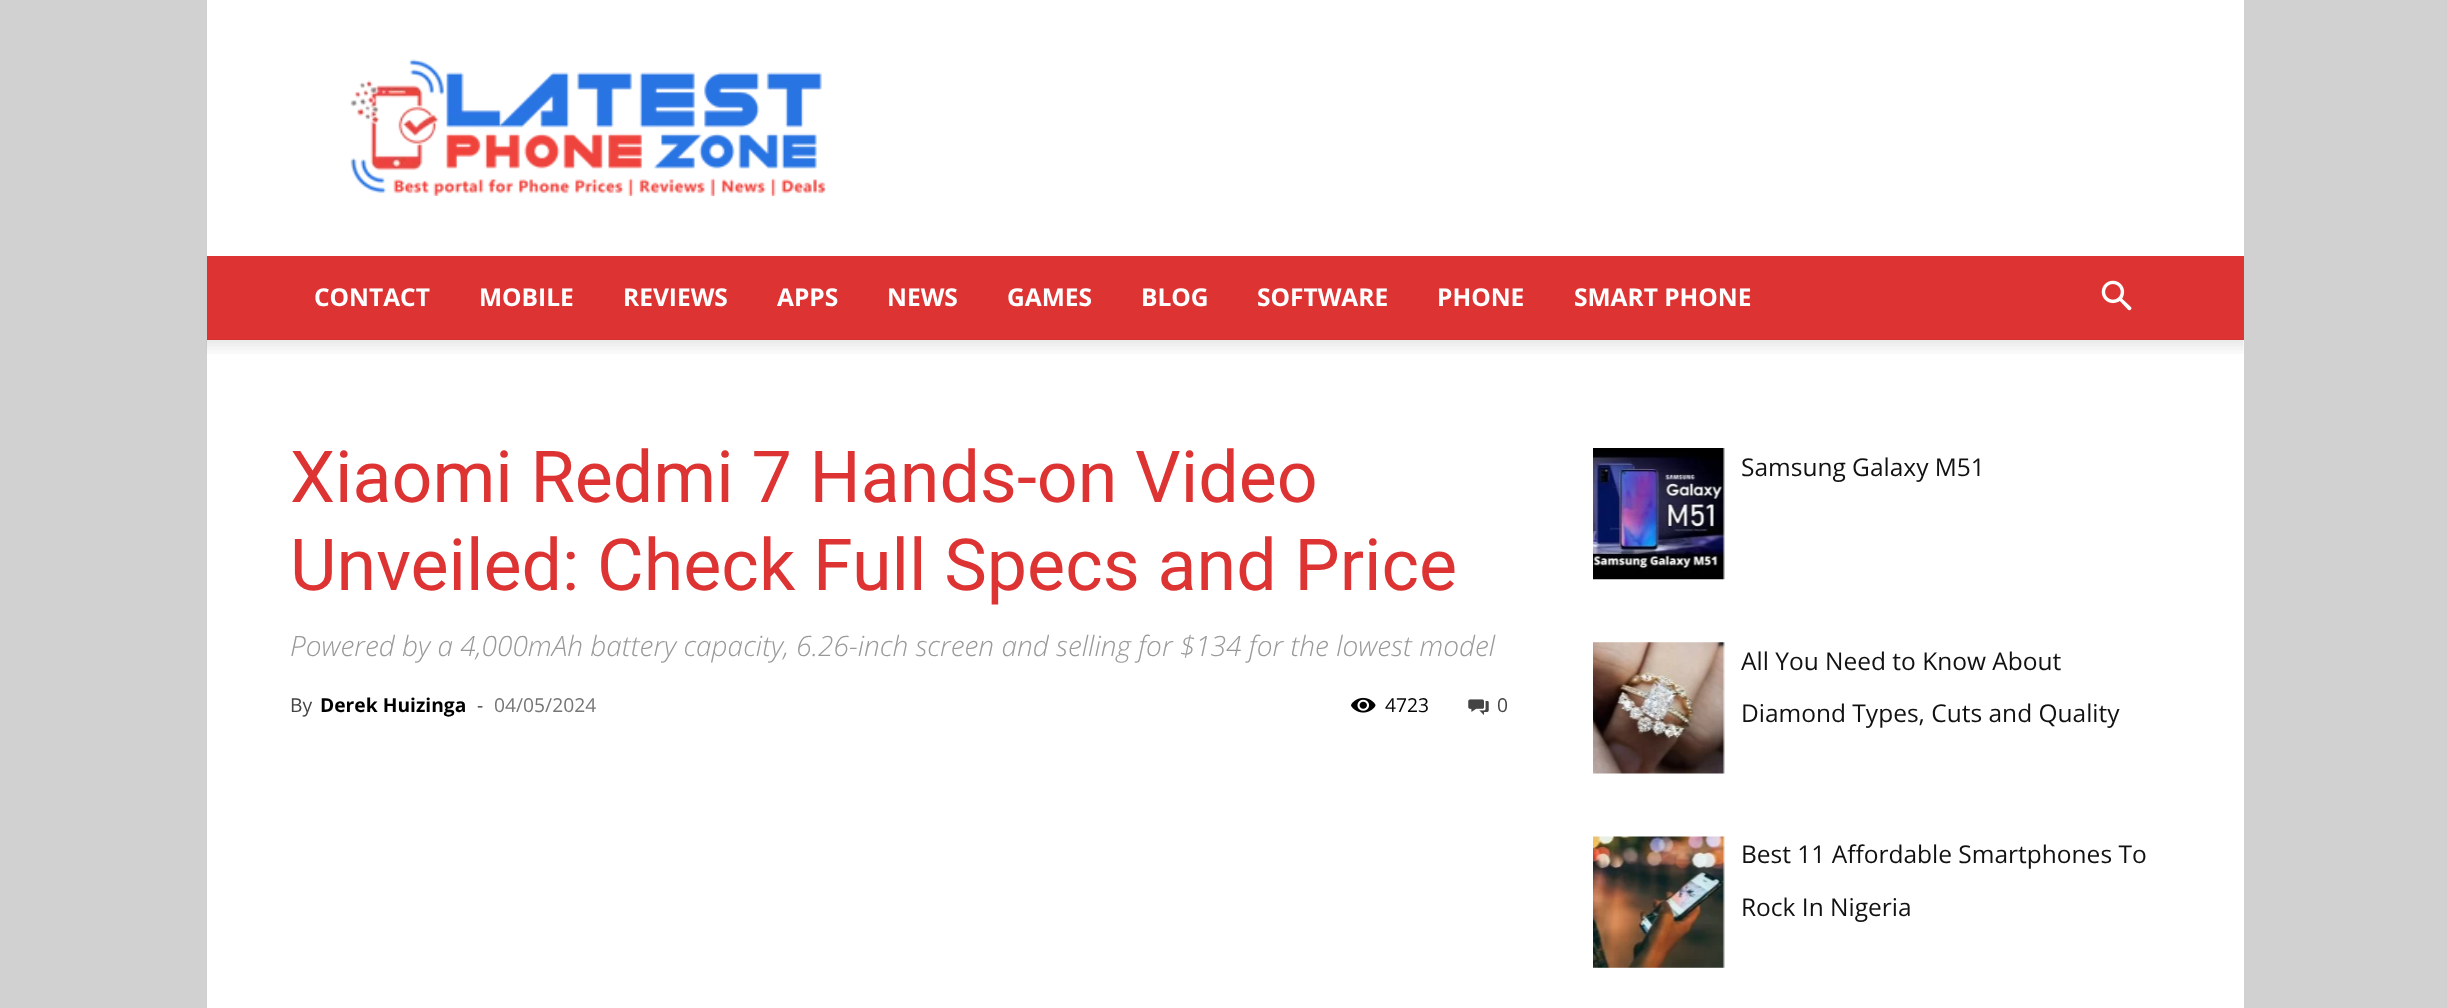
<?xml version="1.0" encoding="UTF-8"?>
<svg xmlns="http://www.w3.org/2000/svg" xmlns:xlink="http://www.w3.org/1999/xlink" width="2447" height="1008">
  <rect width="100%" height="100%" fill="#d1d1d1" />
  <rect x="207" width="2037" height="256" fill="#ffffff" />
  <image x="350" y="59" width="476" height="137" xlink:href="image1.png" />
  <rect x="207" y="256" width="2037" height="84" fill="#dd3333" />
  <image x="2101" y="280" width="31" height="31" xlink:href="image2.png" />
  <rect x="207" y="340" width="2037" height="668" fill="#ffffff" />
  <image x="206" y="339" width="2038" height="15" xlink:href="image3.png" />
  <image x="1351" y="697" width="25" height="16" xlink:href="image4.png" />
  <image x="1468" y="699" width="21" height="16" xlink:href="image5.png" />
  <image x="1593" y="448" width="132" height="132" xlink:href="image6.png" />
  <image x="1593" y="642" width="132" height="132" xlink:href="image7.png" />
  <image x="1593" y="836" width="132" height="132" xlink:href="image8.png" />
  <text x="314" y="306" style="font-family: Open Sans; font-size: 24.5px; font-weight: bold; fill: #ffffff">CONTACT</text>
  <text x="479" y="306" style="font-family: Open Sans; font-size: 24.5px; font-weight: bold; fill: #ffffff">MOBILE</text>
  <text x="623" y="306" style="font-family: Open Sans; font-size: 24.5px; font-weight: bold; fill: #ffffff">REVIEWS</text>
  <text x="777" y="306" style="font-family: Open Sans; font-size: 24.5px; font-weight: bold; fill: #ffffff">APPS</text>
  <text x="887" y="306" style="font-family: Open Sans; font-size: 24.5px; font-weight: bold; fill: #ffffff">NEWS</text>
  <text x="1007" y="306" style="font-family: Open Sans; font-size: 24.5px; font-weight: bold; fill: #ffffff">GAMES</text>
  <text x="1141" y="306" style="font-family: Open Sans; font-size: 24.5px; font-weight: bold; fill: #ffffff">BLOG</text>
  <text x="1257" y="306" style="font-family: Open Sans; font-size: 24.5px; font-weight: bold; fill: #ffffff">SOFTWARE</text>
  <text x="1437" y="306" style="font-family: Open Sans; font-size: 24.5px; font-weight: bold; fill: #ffffff">PHONE</text>
  <text x="1574" y="306" style="font-family: Open Sans; font-size: 24.5px; font-weight: bold; fill: #ffffff">SMART PHONE</text>
  <text x="290" y="502" style="font-family: Roboto; font-size: 71.75px; fill: #dd3333">Xiaomi Redmi 7 Hands-on Video</text>
  <text x="290" y="590" style="font-family: Roboto; font-size: 71.75px; fill: #dd3333">Unveiled: Check Full Specs and Price</text>
  <text x="290" y="656" style="font-family: Open Sans; font-size: 28px; font-weight: 300; font-style: italic; fill: #999999">Powered by a 4,000mAh battery capacity, 6.26-inch screen and selling for $134 for the lowest model</text>
  <text x="290" y="712" style="font-family: Open Sans; font-size: 19.25px; fill: #444444">By</text>
  <text x="320" y="712" style="font-family: Open Sans; font-size: 19.25px; font-weight: bold; fill: #000000">Derek Huizinga</text>
  <text x="477" y="712" style="font-family: Open Sans; font-size: 19.25px; fill: #444444">-</text>
  <text x="494" y="712" style="font-family: Open Sans; font-size: 19.25px; fill: #767676">04/05/2024</text>
  <text x="1385" y="712" style="font-family: Open Sans; font-size: 19.25px; fill: #000000">4723</text>
  <text x="1497" y="712" style="font-family: Open Sans; font-size: 19.25px; fill: #444444">0</text>
  <text x="1741" y="476" style="font-family: Open Sans; font-size: 24.5px; fill: #111111">Samsung Galaxy M51</text>
  <text x="1741" y="670" style="font-family: Open Sans; font-size: 24.5px; fill: #111111">All You Need to Know About</text>
  <text x="1741" y="722" style="font-family: Open Sans; font-size: 24.5px; fill: #111111">Diamond Types, Cuts and Quality</text>
  <text x="1741" y="863" style="font-family: Open Sans; font-size: 24.5px; fill: #111111">Best 11 Affordable Smartphones To</text>
  <text x="1741" y="916" style="font-family: Open Sans; font-size: 24.5px; fill: #111111">Rock In Nigeria</text>
</svg>
